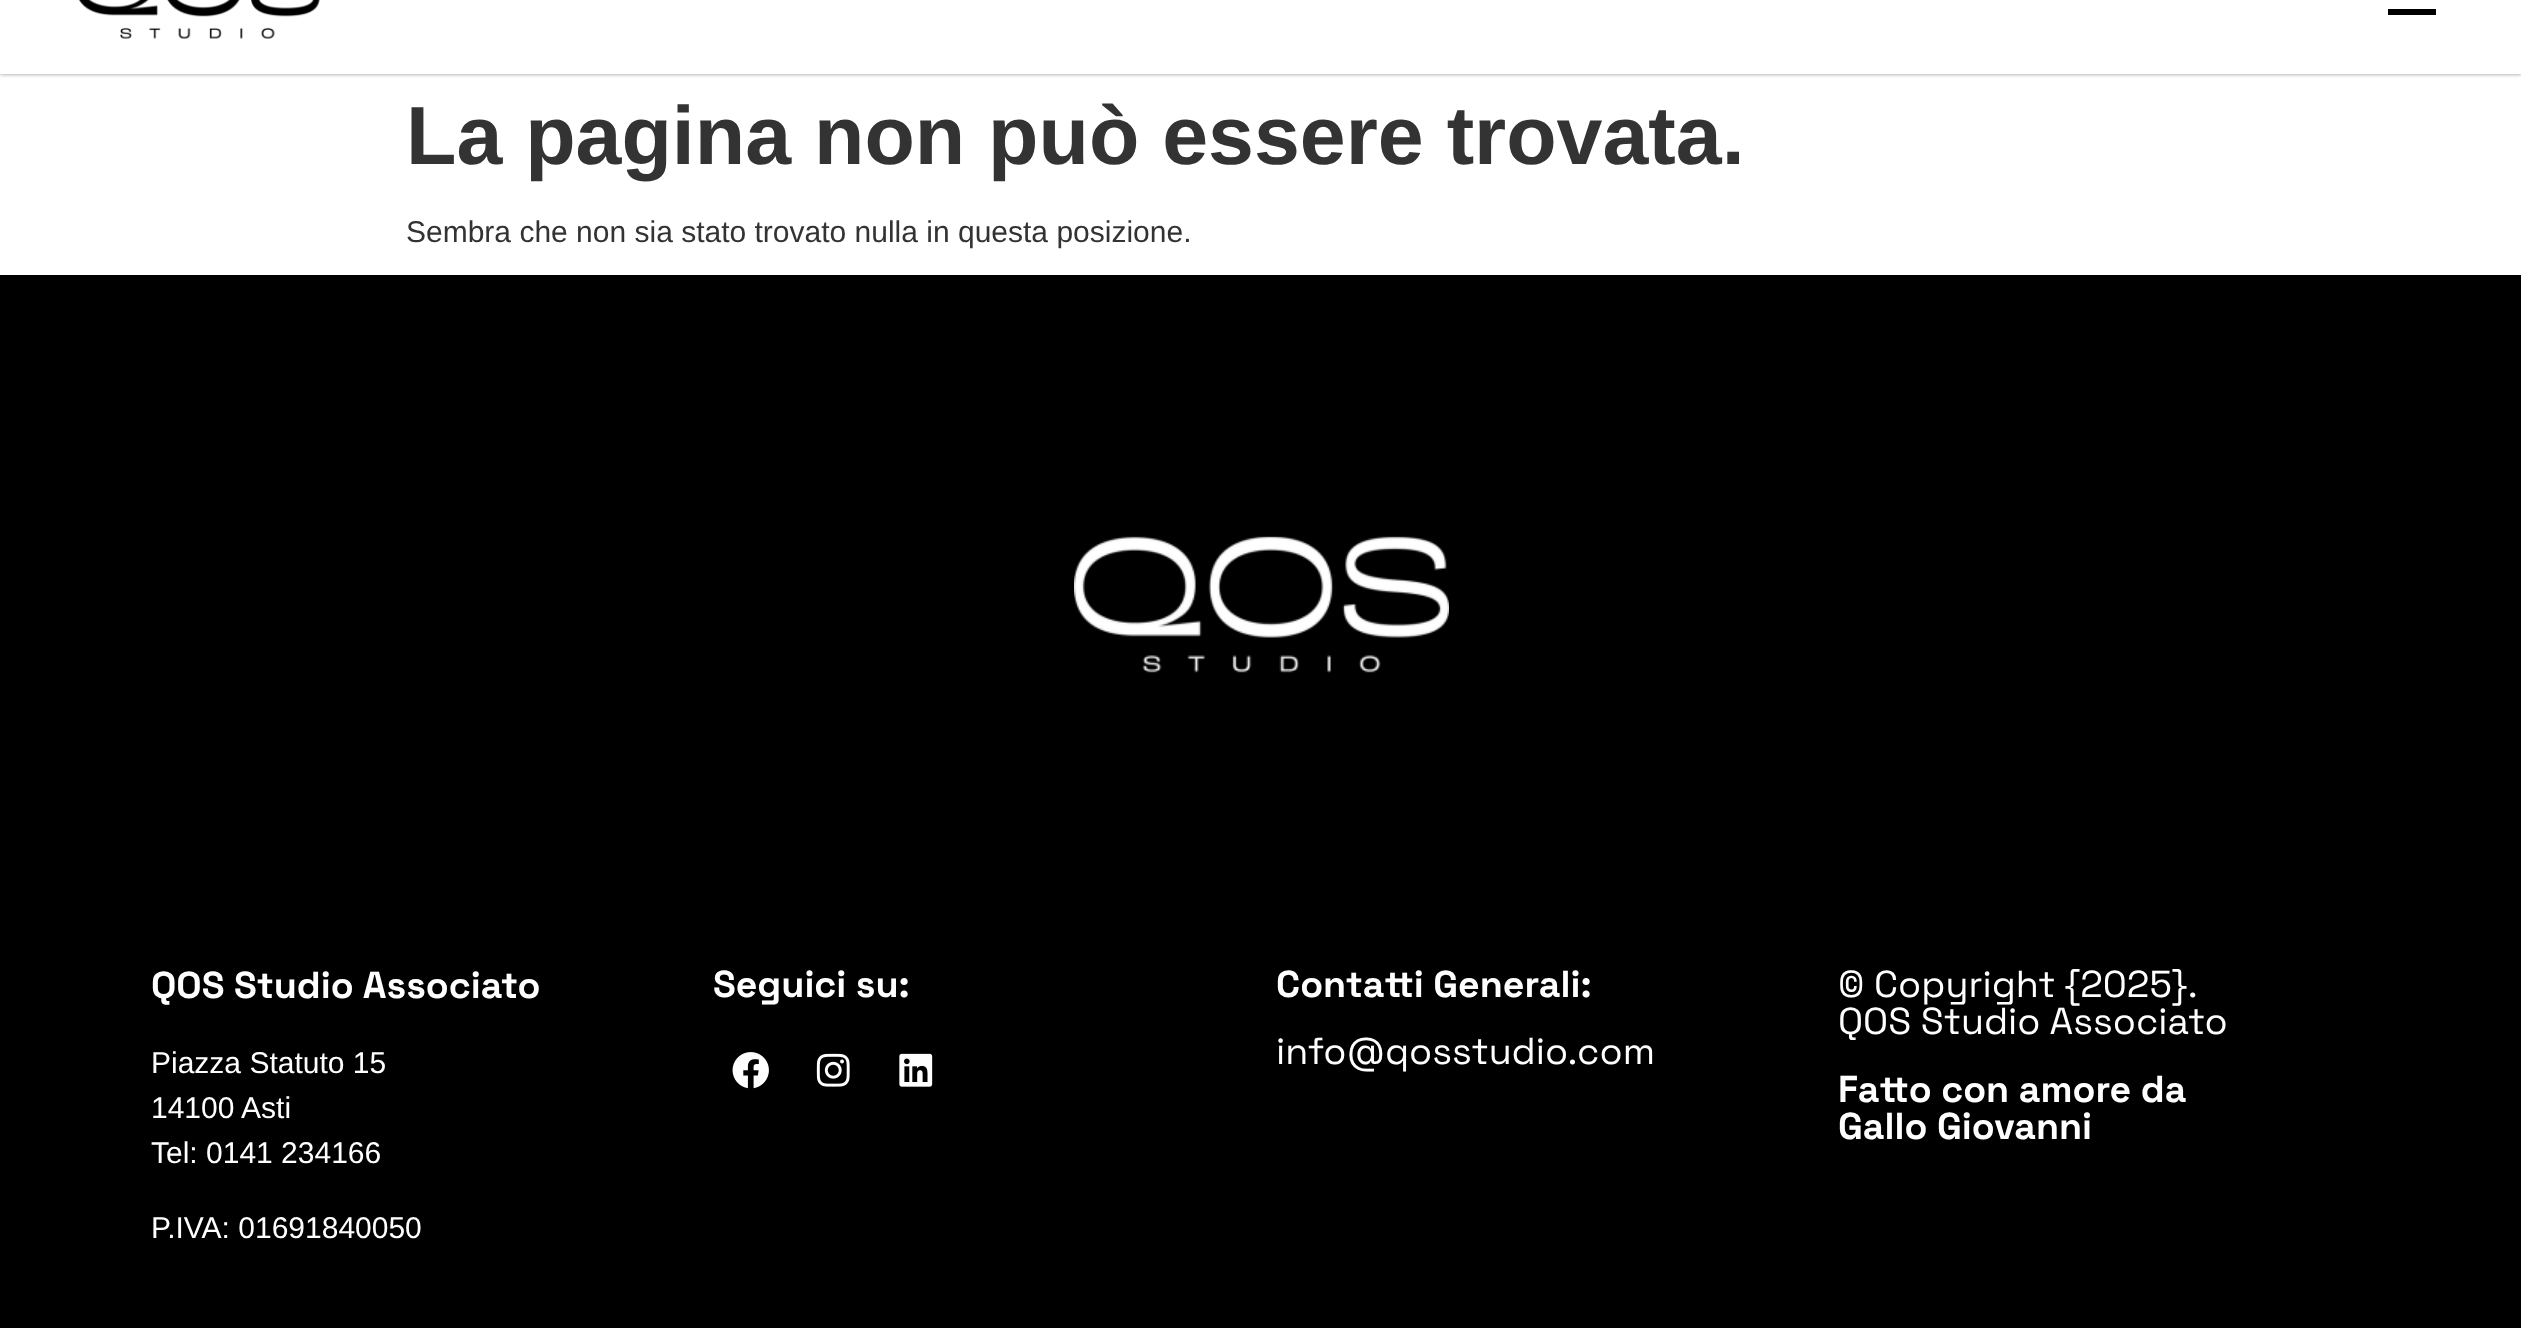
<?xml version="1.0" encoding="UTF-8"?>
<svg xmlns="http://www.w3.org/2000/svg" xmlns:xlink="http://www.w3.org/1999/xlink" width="2521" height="1328">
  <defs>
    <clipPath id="clip1"><path d="M 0 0 h 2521 v 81 h -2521 z m 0 -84 h 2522 v 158 h -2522 z" clip-rule="evenodd" /></clipPath>
  </defs>
  <rect width="100%" height="100%" fill="#ffffff" />
  <g clip-path="url(#clip1)">
    <rect y="-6" width="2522" height="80" fill="#000000" fill-opacity="0.44" filter="blur(2px)" />
  </g>
  <image x="78" y="0" width="242" height="39" xlink:href="image1.png" />
  <path d="M 2361 -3 h 75 v -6 h -75 z m 27 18 h 48 v -6 h -48 z m -12 -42 v 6 h 60 v -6 z" fill="#000000" />
  <rect y="275" width="2521" height="1053" fill="#000000" />
  <image x="1074" y="536" width="375" height="137" xlink:href="image2.png" />
  <image x="732" y="1052" width="37" height="37" xlink:href="image3.png" />
  <image x="816" y="1053" width="34" height="34" xlink:href="image4.png" />
  <image x="899" y="1053" width="34" height="34" xlink:href="image5.png" />
  <text x="406" y="164" style="font-family: Liberation Sans; font-size: 82.5px; font-weight: bold; fill: #333333">La pagina non può essere trovata.</text>
  <text x="406" y="242" style="font-family: Liberation Sans; font-size: 30px; fill: #333333">Sembra che non sia stato trovato nulla in questa posizione.</text>
  <text x="151" y="998" style="font-family: Space Grotesk; font-size: 37.5px; font-weight: bold; fill: #ffffff">QOS Studio Associato</text>
  <text x="151" y="1073" style="font-family: Liberation Sans; font-size: 30px; fill: #ffffff">Piazza Statuto 15</text>
  <text x="151" y="1118" style="font-family: Liberation Sans; font-size: 30px; fill: #ffffff">14100 Asti</text>
  <text x="151" y="1163" style="font-family: Liberation Sans; font-size: 30px; fill: #ffffff">Tel: 0141 234166</text>
  <text x="151" y="1238" style="font-family: Liberation Sans; font-size: 30px; fill: #ffffff">P.IVA: 01691840050</text>
  <text x="713" y="997" style="font-family: Space Grotesk; font-size: 37.5px; font-weight: bold; fill: #ffffff">Seguici su:</text>
  <text x="1276" y="997" style="font-family: Space Grotesk; font-size: 37.5px; font-weight: bold; fill: #ffffff">Contatti Generali:</text>
  <text x="1276" y="1064" style="font-family: Space Grotesk; font-size: 37.5px; fill: #ffffff">info@qosstudio.com</text>
  <text x="1838" y="997" style="font-family: Space Grotesk; font-size: 37.5px; fill: #ffffff">© Copyright {2025}.</text>
  <text x="1838" y="1034" style="font-family: Space Grotesk; font-size: 37.5px; fill: #ffffff">QOS Studio Associato</text>
  <text x="1838" y="1102" style="font-family: Space Grotesk; font-size: 37.5px; font-weight: bold; fill: #ffffff">Fatto con amore da</text>
  <text x="1838" y="1139" style="font-family: Space Grotesk; font-size: 37.5px; font-weight: bold; fill: #ffffff">Gallo Giovanni</text>
</svg>
